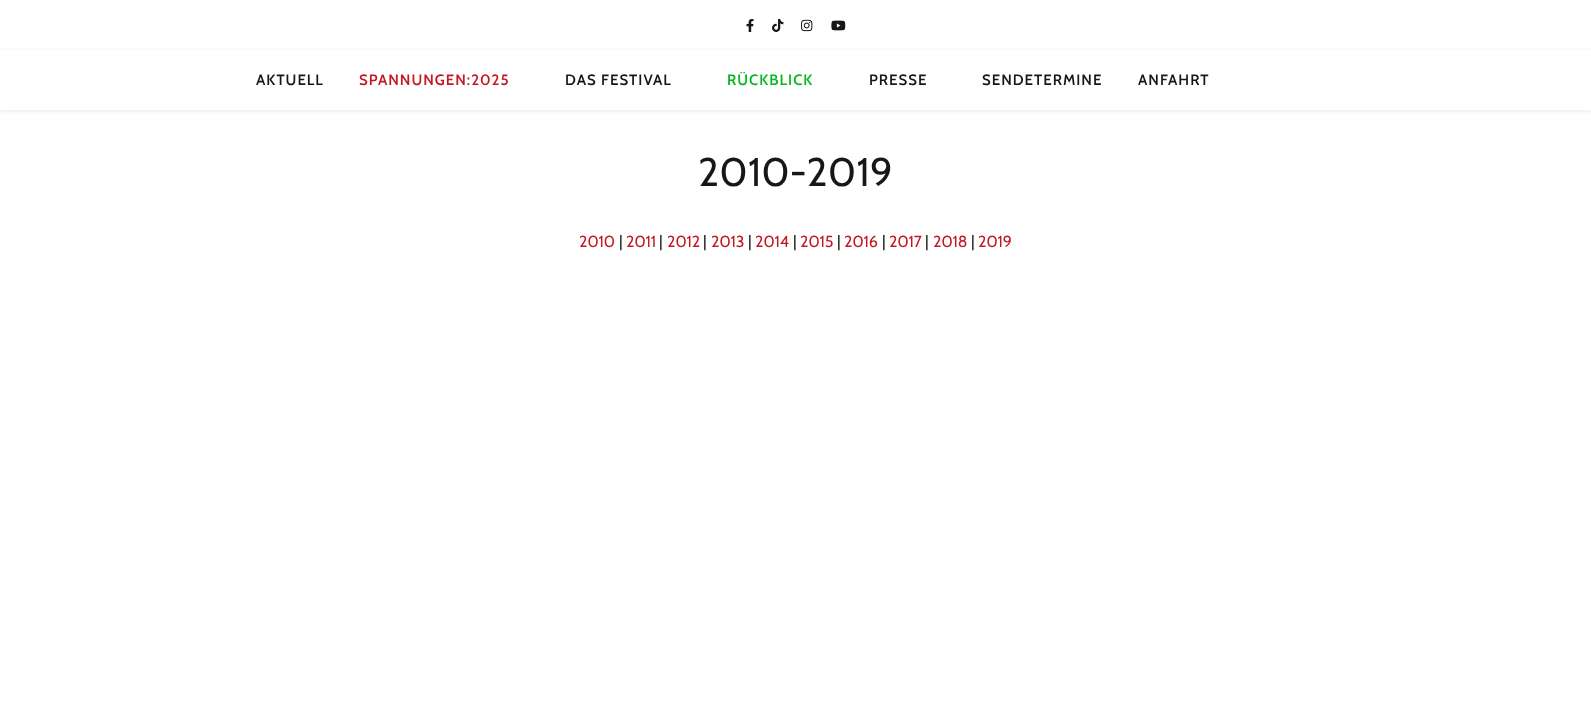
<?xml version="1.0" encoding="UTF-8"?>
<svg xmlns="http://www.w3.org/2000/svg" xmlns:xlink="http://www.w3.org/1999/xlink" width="1591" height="715">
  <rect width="100%" height="100%" fill="#ffffff" />
  <image x="746" y="19" width="8" height="13" xlink:href="image1.png" />
  <image x="772" y="19" width="12" height="13" xlink:href="image2.png" />
  <image x="801" y="19" width="12" height="13" xlink:href="image3.png" />
  <image x="831" y="20" width="15" height="11" xlink:href="image4.png" />
  <rect y="51" width="1591" height="60" fill="#181715" fill-opacity="0.1" filter="blur(2.5px)" />
  <rect y="50" width="1591" height="60" fill="#ffffff" />
  <text x="256" y="85" style="font-family: Cabin; font-size: 15px; font-weight: 600; letter-spacing: 1px; fill: #181715">AKTUELL</text>
  <text x="359" y="85" style="font-family: Cabin; font-size: 15px; font-weight: 600; letter-spacing: 1px; fill: #c31924">SPANNUNGEN:2025</text>
  <text x="565" y="85" style="font-family: Cabin; font-size: 15px; font-weight: 600; letter-spacing: 1px; fill: #181715">DAS FESTIVAL</text>
  <text x="727" y="85" style="font-family: Cabin; font-size: 15px; font-weight: 600; letter-spacing: 1px; fill: #06b61e">RÜCKBLICK</text>
  <text x="869" y="85" style="font-family: Cabin; font-size: 15px; font-weight: 600; letter-spacing: 1px; fill: #181715">PRESSE</text>
  <text x="982" y="85" style="font-family: Cabin; font-size: 15px; font-weight: 600; letter-spacing: 1px; fill: #181715">SENDETERMINE</text>
  <text x="1138" y="85" style="font-family: Cabin; font-size: 15px; font-weight: 600; letter-spacing: 1px; fill: #181715">ANFAHRT</text>
  <text x="698" y="186" style="font-family: Cabin; font-size: 40px; letter-spacing: 0.5px; fill: #181715">2010-2019</text>
  <text x="579" y="247" style="font-family: Cabin; font-size: 16px; fill: #c31924">2010</text>
  <text x="619" y="247" style="font-family: Cabin; font-size: 16px; fill: #181715">|</text>
  <text x="626" y="247" style="font-family: Cabin; font-size: 16px; fill: #c31924">2011</text>
  <text x="659" y="247" style="font-family: Cabin; font-size: 16px; fill: #181715">|</text>
  <text x="667" y="247" style="font-family: Cabin; font-size: 16px; fill: #c31924">2012</text>
  <text x="703" y="247" style="font-family: Cabin; font-size: 16px; fill: #181715">|</text>
  <text x="711" y="247" style="font-family: Cabin; font-size: 16px; fill: #c31924">2013</text>
  <text x="748" y="247" style="font-family: Cabin; font-size: 16px; fill: #181715">|</text>
  <text x="755" y="247" style="font-family: Cabin; font-size: 16px; fill: #c31924">2014</text>
  <text x="793" y="247" style="font-family: Cabin; font-size: 16px; fill: #181715">|</text>
  <text x="800" y="247" style="font-family: Cabin; font-size: 16px; fill: #c31924">2015</text>
  <text x="837" y="247" style="font-family: Cabin; font-size: 16px; fill: #181715">|</text>
  <text x="844" y="247" style="font-family: Cabin; font-size: 16px; fill: #c31924">2016</text>
  <text x="882" y="247" style="font-family: Cabin; font-size: 16px; fill: #181715">|</text>
  <text x="889" y="247" style="font-family: Cabin; font-size: 16px; fill: #c31924">2017</text>
  <text x="925" y="247" style="font-family: Cabin; font-size: 16px; fill: #181715">|</text>
  <text x="933" y="247" style="font-family: Cabin; font-size: 16px; fill: #c31924">2018</text>
  <text x="971" y="247" style="font-family: Cabin; font-size: 16px; fill: #181715">|</text>
  <text x="978" y="247" style="font-family: Cabin; font-size: 16px; fill: #c31924">2019</text>
</svg>
